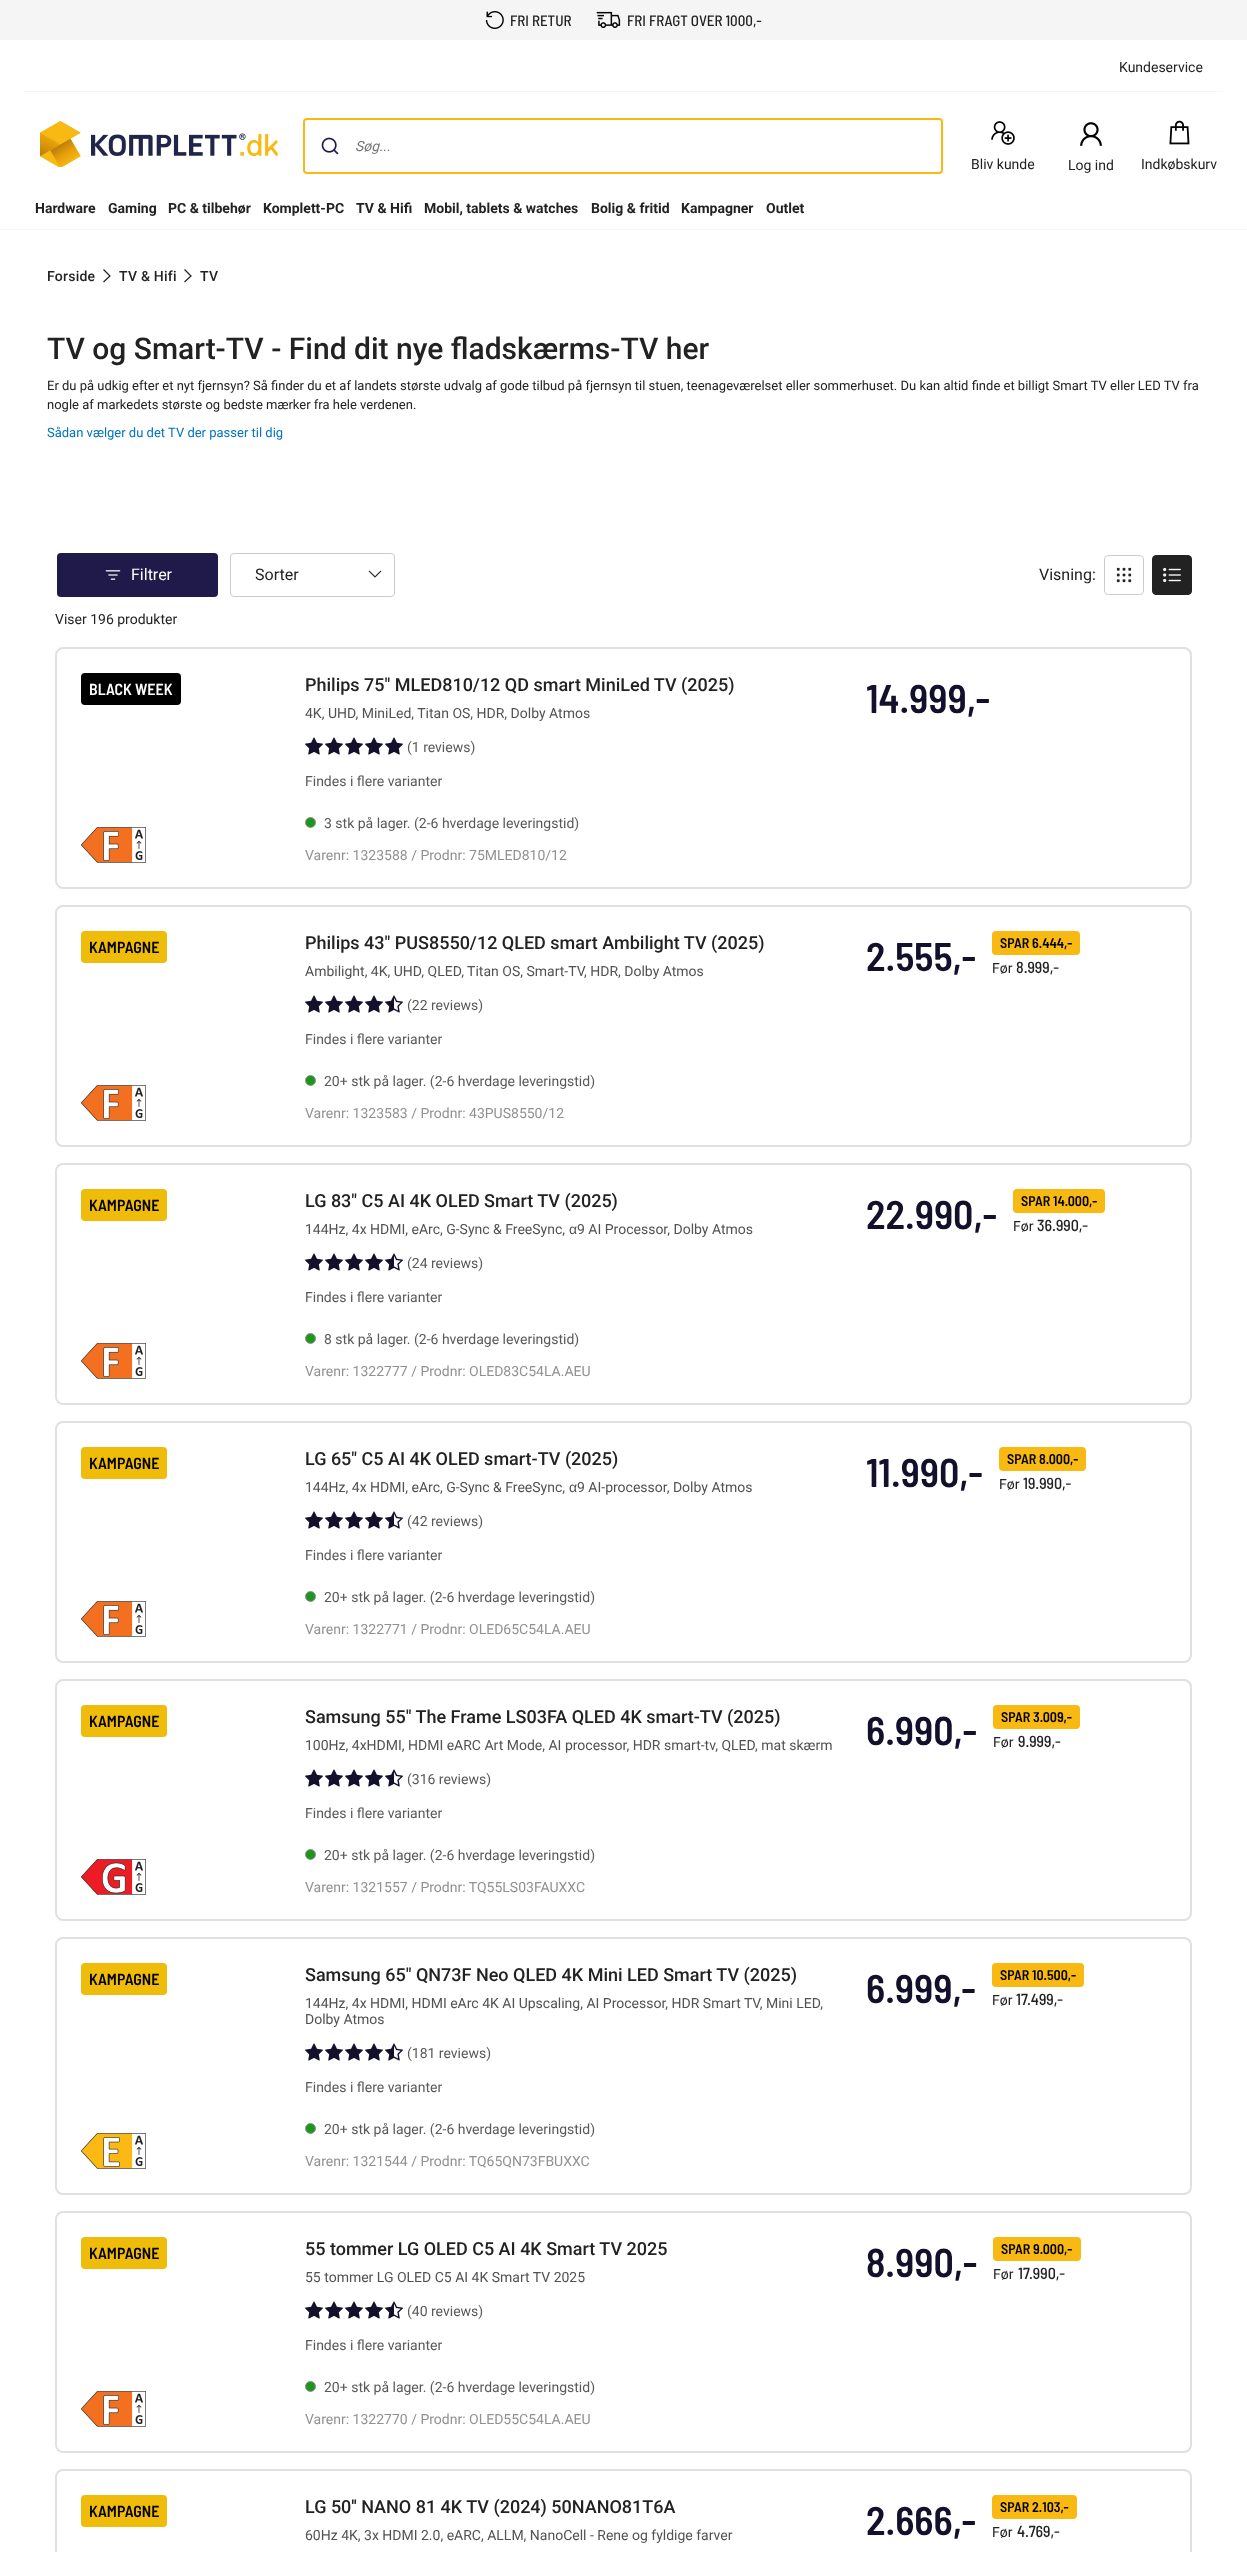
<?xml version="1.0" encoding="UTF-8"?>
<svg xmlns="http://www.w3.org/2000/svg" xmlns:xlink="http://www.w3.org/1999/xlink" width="1247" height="2552">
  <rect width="100%" height="100%" fill="#ffffff" />
  <rect width="1247" height="40" fill="#f5f5f5" />
  <image x="485" y="11" width="19" height="18" xlink:href="image1.png" />
  <image x="596" y="11" width="25" height="17" xlink:href="image2.png" />
  <rect x="24" y="91" width="1199" height="1" fill="#f5f5f5" />
  <image x="40" y="121" width="238" height="46" xlink:href="image3.png" />
  <rect x="304" y="119" width="638" height="54" rx="3" fill="none" stroke="#f8b912" stroke-width="2" />
  <image x="321" y="137" width="18" height="18" xlink:href="image4.png" />
  <image x="991" y="121" width="24" height="24" xlink:href="image5.png" />
  <image x="1080" y="122" width="22" height="24" xlink:href="image6.png" />
  <image x="1169" y="120" width="21" height="25" xlink:href="image7.png" />
  <rect y="229" width="1247" height="1" fill="#f5f5f5" />
  <path d="M 103.5 269.5 l 6.5 6.5 l -6.5 6" fill="none" stroke="#222222" stroke-width="1.2" />
  <path d="M 184.5 269.5 l 6.5 6.5 l -6.5 6" fill="none" stroke="#222222" stroke-width="1.2" />
  <rect x="57" y="553" width="161" height="44" rx="4" fill="#1f1a49" />
  <image x="105" y="570" width="16" height="10" xlink:href="image8.png" />
  <image x="368" y="570" width="14" height="8" xlink:href="image9.png" />
  <rect x="230.5" y="553.5" width="164" height="43" rx="3.5" fill="none" stroke="#cccccc" />
  <rect x="1104.5" y="555.5" width="39" height="39" rx="3.5" fill="none" stroke="#cccccc" />
  <image x="1116" y="567" width="16" height="16" xlink:href="image10.png" />
  <rect x="1152.5" y="555.5" width="39" height="39" rx="3.5" fill="#222222" stroke="#222222" />
  <image x="1163" y="567" width="18" height="16" xlink:href="image11.png" />
  <rect x="56" y="648" width="1135" height="240" rx="7" fill="none" stroke="#e0e0e0" stroke-width="2" />
  <rect x="81" y="673" width="100" height="32" rx="4" fill="#000000" />
  <image x="81" y="827" width="65" height="36" xlink:href="image12.png" />
  <image x="305" y="737" width="18" height="18" xlink:href="image13.png" />
  <image x="325" y="737" width="18" height="18" xlink:href="image13.png" />
  <image x="345" y="737" width="18" height="18" xlink:href="image13.png" />
  <image x="365" y="737" width="18" height="18" xlink:href="image13.png" />
  <image x="385" y="737" width="18" height="18" xlink:href="image13.png" />
  <circle cx="310.5" cy="822.5" r="5" fill="#1c961c" stroke="#919191" />
  <rect x="56" y="906" width="1135" height="240" rx="7" fill="none" stroke="#e0e0e0" stroke-width="2" />
  <rect x="81" y="931" width="86" height="32" rx="4" fill="#f0bc0a" />
  <image x="81" y="1085" width="65" height="36" xlink:href="image12.png" />
  <image x="305" y="995" width="18" height="18" xlink:href="image13.png" />
  <image x="325" y="995" width="18" height="18" xlink:href="image13.png" />
  <image x="345" y="995" width="18" height="18" xlink:href="image13.png" />
  <image x="365" y="995" width="18" height="18" xlink:href="image13.png" />
  <image x="385" y="995" width="18" height="18" xlink:href="image14.png" />
  <circle cx="310.5" cy="1080.5" r="5" fill="#1c961c" stroke="#919191" />
  <rect x="992" y="931" width="88" height="24" rx="4" fill="#f8b912" />
  <rect x="56" y="1164" width="1135" height="240" rx="7" fill="none" stroke="#e0e0e0" stroke-width="2" />
  <rect x="81" y="1189" width="86" height="32" rx="4" fill="#f0bc0a" />
  <image x="81" y="1343" width="65" height="36" xlink:href="image12.png" />
  <image x="305" y="1253" width="18" height="18" xlink:href="image13.png" />
  <image x="325" y="1253" width="18" height="18" xlink:href="image13.png" />
  <image x="345" y="1253" width="18" height="18" xlink:href="image13.png" />
  <image x="365" y="1253" width="18" height="18" xlink:href="image13.png" />
  <image x="385" y="1253" width="18" height="18" xlink:href="image14.png" />
  <circle cx="310.5" cy="1338.5" r="5" fill="#1c961c" stroke="#919191" />
  <rect x="1013" y="1189" width="92" height="24" rx="4" fill="#f8b912" />
  <rect x="56" y="1422" width="1135" height="240" rx="7" fill="none" stroke="#e0e0e0" stroke-width="2" />
  <rect x="81" y="1447" width="86" height="32" rx="4" fill="#f0bc0a" />
  <image x="81" y="1601" width="65" height="36" xlink:href="image12.png" />
  <image x="305" y="1511" width="18" height="18" xlink:href="image13.png" />
  <image x="325" y="1511" width="18" height="18" xlink:href="image13.png" />
  <image x="345" y="1511" width="18" height="18" xlink:href="image13.png" />
  <image x="365" y="1511" width="18" height="18" xlink:href="image13.png" />
  <image x="385" y="1511" width="18" height="18" xlink:href="image14.png" />
  <circle cx="310.5" cy="1596.5" r="5" fill="#1c961c" stroke="#919191" />
  <rect x="999" y="1447" width="87" height="24" rx="4" fill="#f8b912" />
  <rect x="56" y="1680" width="1135" height="240" rx="7" fill="none" stroke="#e0e0e0" stroke-width="2" />
  <rect x="81" y="1705" width="86" height="32" rx="4" fill="#f0bc0a" />
  <image x="81" y="1859" width="65" height="36" xlink:href="image15.png" />
  <image x="305" y="1769" width="18" height="18" xlink:href="image13.png" />
  <image x="325" y="1769" width="18" height="18" xlink:href="image13.png" />
  <image x="345" y="1769" width="18" height="18" xlink:href="image13.png" />
  <image x="365" y="1769" width="18" height="18" xlink:href="image13.png" />
  <image x="385" y="1769" width="18" height="18" xlink:href="image14.png" />
  <circle cx="310.5" cy="1854.5" r="5" fill="#1c961c" stroke="#919191" />
  <rect x="993" y="1705" width="87" height="24" rx="4" fill="#f8b912" />
  <rect x="56" y="1938" width="1135" height="256" rx="7" fill="none" stroke="#e0e0e0" stroke-width="2" />
  <rect x="81" y="1963" width="86" height="32" rx="4" fill="#f0bc0a" />
  <image x="81" y="2133" width="65" height="36" xlink:href="image16.png" />
  <image x="305" y="2043" width="18" height="18" xlink:href="image13.png" />
  <image x="325" y="2043" width="18" height="18" xlink:href="image13.png" />
  <image x="345" y="2043" width="18" height="18" xlink:href="image13.png" />
  <image x="365" y="2043" width="18" height="18" xlink:href="image13.png" />
  <image x="385" y="2043" width="18" height="18" xlink:href="image14.png" />
  <circle cx="310.5" cy="2128.5" r="5" fill="#1c961c" stroke="#919191" />
  <rect x="992" y="1963" width="92" height="24" rx="4" fill="#f8b912" />
  <rect x="56" y="2212" width="1135" height="240" rx="7" fill="none" stroke="#e0e0e0" stroke-width="2" />
  <rect x="81" y="2237" width="86" height="32" rx="4" fill="#f0bc0a" />
  <image x="81" y="2391" width="65" height="36" xlink:href="image12.png" />
  <image x="305" y="2301" width="18" height="18" xlink:href="image13.png" />
  <image x="325" y="2301" width="18" height="18" xlink:href="image13.png" />
  <image x="345" y="2301" width="18" height="18" xlink:href="image13.png" />
  <image x="365" y="2301" width="18" height="18" xlink:href="image13.png" />
  <image x="385" y="2301" width="18" height="18" xlink:href="image14.png" />
  <circle cx="310.5" cy="2386.5" r="5" fill="#1c961c" stroke="#919191" />
  <rect x="993" y="2237" width="88" height="24" rx="4" fill="#f8b912" />
  <rect x="56" y="2470" width="1135" height="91" rx="7" fill="none" stroke="#e0e0e0" stroke-width="2" />
  <rect x="81" y="2495" width="86" height="32" rx="4" fill="#f0bc0a" />
  <rect x="992" y="2495" width="85" height="24" rx="4" fill="#f8b912" />
  <text x="510" y="26" style="font-family: Barlow Semi Condensed; font-size: 15px; font-weight: 500; fill: #222222">FRI RETUR</text>
  <text x="627" y="26" style="font-family: Barlow Semi Condensed; font-size: 15px; font-weight: 500; fill: #222222">FRI FRAGT OVER 1000,-</text>
  <text x="1119" y="72" style="font-family: Roboto; font-size: 14px; fill: #222222">Kundeservice</text>
  <text x="355" y="151" style="font-family: Roboto; font-size: 14px; font-style: italic; fill: #767676">Søg...</text>
  <text x="971" y="169" style="font-family: Roboto; font-size: 14px; fill: #222222">Bliv kunde</text>
  <text x="1068" y="170" style="font-family: Roboto; font-size: 14px; fill: #222222">Log ind</text>
  <text x="1141" y="169" style="font-family: Roboto; font-size: 14px; fill: #222222">Indkøbskurv</text>
  <text x="35" y="213" style="font-family: Roboto; font-size: 14px; font-weight: bold; fill: #222222">Hardware</text>
  <text x="108" y="213" style="font-family: Roboto; font-size: 14px; font-weight: bold; fill: #222222">Gaming</text>
  <text x="168" y="213" style="font-family: Roboto; font-size: 14px; font-weight: bold; fill: #222222">PC &amp; tilbehør</text>
  <text x="263" y="213" style="font-family: Roboto; font-size: 14px; font-weight: bold; fill: #222222">Komplett-PC</text>
  <text x="356" y="213" style="font-family: Roboto; font-size: 14px; font-weight: bold; fill: #222222">TV &amp; Hifi</text>
  <text x="424" y="213" style="font-family: Roboto; font-size: 14px; font-weight: bold; fill: #222222">Mobil, tablets &amp; watches</text>
  <text x="591" y="213" style="font-family: Roboto; font-size: 14px; font-weight: bold; fill: #222222">Bolig &amp; fritid</text>
  <text x="681" y="213" style="font-family: Roboto; font-size: 14px; font-weight: bold; fill: #222222">Kampagner</text>
  <text x="766" y="213" style="font-family: Roboto; font-size: 14px; font-weight: bold; fill: #222222">Outlet</text>
  <text x="47" y="281" style="font-family: Roboto; font-size: 14px; font-weight: 500; letter-spacing: 0.25px; fill: #222222">Forside</text>
  <text x="119" y="281" style="font-family: Roboto; font-size: 14px; font-weight: 500; letter-spacing: 0.25px; fill: #222222">TV &amp; Hifi</text>
  <text x="200" y="281" style="font-family: Roboto; font-size: 14px; font-weight: 500; letter-spacing: 0.25px; fill: #222222">TV</text>
  <text x="47" y="359" style="font-family: Roboto; font-size: 30px; font-weight: 500; fill: #222222">TV og Smart-TV - Find dit nye fladskærms-TV her</text>
  <text x="47" y="390" style="font-family: Roboto; font-size: 13px; fill: #222222">Er du på udkig efter et nyt fjernsyn? Så finder du et af landets største udvalg af gode tilbud på fjernsyn til stuen, teenageværelset eller sommerhuset. Du kan altid finde et billigt Smart TV eller LED TV fra</text>
  <text x="47" y="409" style="font-family: Roboto; font-size: 13px; fill: #222222">nogle af markedets største og bedste mærker fra hele verdenen.</text>
  <text x="47" y="437" style="font-family: Roboto; font-size: 13px; fill: #0074bd">Sådan vælger du det TV der passer til dig</text>
  <text x="131" y="580" style="font-family: Roboto; font-size: 16px; fill: #ffffff">Filtrer</text>
  <text x="255" y="580" style="font-family: Roboto; font-size: 16px; fill: #222222">Sorter</text>
  <text x="1039" y="580" style="font-family: Roboto; font-size: 16px; fill: #222222">Visning:</text>
  <text x="55" y="624" style="font-family: Roboto; font-size: 14px; fill: #222222">Viser 196 produkter</text>
  <text x="89" y="695" style="font-family: Barlow Semi Condensed; font-size: 16px; font-weight: 600; fill: #ffffff">BLACK WEEK</text>
  <text x="305" y="691" style="font-family: Roboto; font-size: 18px; font-weight: 500; fill: #222222">Philips 75" MLED810/12 QD smart MiniLed TV (2025)</text>
  <text x="305" y="718" style="font-family: Roboto; font-size: 14px; fill: #525252">4K, UHD, MiniLed, Titan OS, HDR, Dolby Atmos</text>
  <text x="407" y="752" style="font-family: Roboto; font-size: 14px; fill: #595959">(1 reviews)</text>
  <text x="305" y="786" style="font-family: Roboto; font-size: 14px; fill: #595959">Findes i flere varianter</text>
  <text x="324" y="828" style="font-family: Roboto; font-size: 14px; fill: #595959">3 stk på lager. (2-6 hverdage leveringstid)</text>
  <text x="305" y="860" style="font-family: Roboto; font-size: 14px; fill: #919191">Varenr: 1323588 / Prodnr: 75MLED810/12</text>
  <text x="866" y="713" style="font-family: Barlow Semi Condensed; font-size: 40px; font-weight: 600; fill: #13102c">14.999,-</text>
  <text x="89" y="953" style="font-family: Barlow Semi Condensed; font-size: 16px; font-weight: 600; fill: #000000">KAMPAGNE</text>
  <text x="305" y="949" style="font-family: Roboto; font-size: 18px; font-weight: 500; fill: #222222">Philips 43" PUS8550/12 QLED smart Ambilight TV (2025)</text>
  <text x="305" y="976" style="font-family: Roboto; font-size: 14px; fill: #525252">Ambilight, 4K, UHD, QLED, Titan OS, Smart-TV, HDR, Dolby Atmos</text>
  <text x="407" y="1010" style="font-family: Roboto; font-size: 14px; fill: #595959">(22 reviews)</text>
  <text x="305" y="1044" style="font-family: Roboto; font-size: 14px; fill: #595959">Findes i flere varianter</text>
  <text x="324" y="1086" style="font-family: Roboto; font-size: 14px; fill: #595959">20+ stk på lager. (2-6 hverdage leveringstid)</text>
  <text x="305" y="1118" style="font-family: Roboto; font-size: 14px; fill: #919191">Varenr: 1323583 / Prodnr: 43PUS8550/12</text>
  <text x="866" y="971" style="font-family: Barlow Semi Condensed; font-size: 40px; font-weight: 600; fill: #13102c">2.555,-</text>
  <text x="1000" y="948" style="font-family: Barlow Semi Condensed; font-size: 14px; font-weight: 600; fill: #000000">SPAR 6.444,-</text>
  <text x="992" y="973" style="font-family: Roboto; font-size: 14px; fill: #222222">Før</text>
  <text x="1016" y="973" style="font-family: Barlow Semi Condensed; font-size: 16px; font-weight: 500; fill: #222222">8.999,-</text>
  <text x="89" y="1211" style="font-family: Barlow Semi Condensed; font-size: 16px; font-weight: 600; fill: #000000">KAMPAGNE</text>
  <text x="305" y="1207" style="font-family: Roboto; font-size: 18px; font-weight: 500; fill: #222222">LG 83" C5 AI 4K OLED Smart TV (2025)</text>
  <text x="305" y="1234" style="font-family: Roboto; font-size: 14px; fill: #525252">144Hz, 4x HDMI, eArc, G-Sync &amp; FreeSync,</text>
  <text x="569" y="1234" style="font-family: Liberation Sans; font-size: 14px; fill: #525252">α</text>
  <text x="577" y="1234" style="font-family: Roboto; font-size: 14px; fill: #525252">9 AI Processor, Dolby Atmos</text>
  <text x="407" y="1268" style="font-family: Roboto; font-size: 14px; fill: #595959">(24 reviews)</text>
  <text x="305" y="1302" style="font-family: Roboto; font-size: 14px; fill: #595959">Findes i flere varianter</text>
  <text x="324" y="1344" style="font-family: Roboto; font-size: 14px; fill: #595959">8 stk på lager. (2-6 hverdage leveringstid)</text>
  <text x="305" y="1376" style="font-family: Roboto; font-size: 14px; fill: #919191">Varenr: 1322777 / Prodnr: OLED83C54LA.AEU</text>
  <text x="866" y="1229" style="font-family: Barlow Semi Condensed; font-size: 40px; font-weight: 600; fill: #13102c">22.990,-</text>
  <text x="1021" y="1206" style="font-family: Barlow Semi Condensed; font-size: 14px; font-weight: 600; fill: #000000">SPAR 14.000,-</text>
  <text x="1013" y="1231" style="font-family: Roboto; font-size: 14px; fill: #222222">Før</text>
  <text x="1037" y="1231" style="font-family: Barlow Semi Condensed; font-size: 16px; font-weight: 500; fill: #222222">36.990,-</text>
  <text x="89" y="1469" style="font-family: Barlow Semi Condensed; font-size: 16px; font-weight: 600; fill: #000000">KAMPAGNE</text>
  <text x="305" y="1465" style="font-family: Roboto; font-size: 18px; font-weight: 500; fill: #222222">LG 65" C5 AI 4K OLED smart-TV (2025)</text>
  <text x="305" y="1492" style="font-family: Roboto; font-size: 14px; fill: #525252">144Hz, 4x HDMI, eArc, G-Sync &amp; FreeSync,</text>
  <text x="569" y="1492" style="font-family: Liberation Sans; font-size: 14px; fill: #525252">α</text>
  <text x="577" y="1492" style="font-family: Roboto; font-size: 14px; fill: #525252">9 AI-processor, Dolby Atmos</text>
  <text x="407" y="1526" style="font-family: Roboto; font-size: 14px; fill: #595959">(42 reviews)</text>
  <text x="305" y="1560" style="font-family: Roboto; font-size: 14px; fill: #595959">Findes i flere varianter</text>
  <text x="324" y="1602" style="font-family: Roboto; font-size: 14px; fill: #595959">20+ stk på lager. (2-6 hverdage leveringstid)</text>
  <text x="305" y="1634" style="font-family: Roboto; font-size: 14px; fill: #919191">Varenr: 1322771 / Prodnr: OLED65C54LA.AEU</text>
  <text x="866" y="1487" style="font-family: Barlow Semi Condensed; font-size: 40px; font-weight: 600; fill: #13102c">11.990,-</text>
  <text x="1007" y="1464" style="font-family: Barlow Semi Condensed; font-size: 14px; font-weight: 600; fill: #000000">SPAR 8.000,-</text>
  <text x="999" y="1489" style="font-family: Roboto; font-size: 14px; fill: #222222">Før</text>
  <text x="1023" y="1489" style="font-family: Barlow Semi Condensed; font-size: 16px; font-weight: 500; fill: #222222">19.990,-</text>
  <text x="89" y="1727" style="font-family: Barlow Semi Condensed; font-size: 16px; font-weight: 600; fill: #000000">KAMPAGNE</text>
  <text x="305" y="1723" style="font-family: Roboto; font-size: 18px; font-weight: 500; fill: #222222">Samsung 55" The Frame LS03FA QLED 4K smart-TV (2025)</text>
  <text x="305" y="1750" style="font-family: Roboto; font-size: 14px; fill: #525252">100Hz, 4xHDMI, HDMI eARC Art Mode, AI processor, HDR smart-tv, QLED, mat skærm</text>
  <text x="407" y="1784" style="font-family: Roboto; font-size: 14px; fill: #595959">(316 reviews)</text>
  <text x="305" y="1818" style="font-family: Roboto; font-size: 14px; fill: #595959">Findes i flere varianter</text>
  <text x="324" y="1860" style="font-family: Roboto; font-size: 14px; fill: #595959">20+ stk på lager. (2-6 hverdage leveringstid)</text>
  <text x="305" y="1892" style="font-family: Roboto; font-size: 14px; fill: #919191">Varenr: 1321557 / Prodnr: TQ55LS03FAUXXC</text>
  <text x="866" y="1745" style="font-family: Barlow Semi Condensed; font-size: 40px; font-weight: 600; fill: #13102c">6.990,-</text>
  <text x="1001" y="1722" style="font-family: Barlow Semi Condensed; font-size: 14px; font-weight: 600; fill: #000000">SPAR 3.009,-</text>
  <text x="993" y="1747" style="font-family: Roboto; font-size: 14px; fill: #222222">Før</text>
  <text x="1018" y="1747" style="font-family: Barlow Semi Condensed; font-size: 16px; font-weight: 500; fill: #222222">9.999,-</text>
  <text x="89" y="1985" style="font-family: Barlow Semi Condensed; font-size: 16px; font-weight: 600; fill: #000000">KAMPAGNE</text>
  <text x="305" y="1981" style="font-family: Roboto; font-size: 18px; font-weight: 500; fill: #222222">Samsung 65" QN73F Neo QLED 4K Mini LED Smart TV (2025)</text>
  <text x="305" y="2008" style="font-family: Roboto; font-size: 14px; fill: #525252">144Hz, 4x HDMI, HDMI eArc 4K AI Upscaling, AI Processor, HDR Smart TV, Mini LED,</text>
  <text x="305" y="2024" style="font-family: Roboto; font-size: 14px; fill: #525252">Dolby Atmos</text>
  <text x="407" y="2058" style="font-family: Roboto; font-size: 14px; fill: #595959">(181 reviews)</text>
  <text x="305" y="2092" style="font-family: Roboto; font-size: 14px; fill: #595959">Findes i flere varianter</text>
  <text x="324" y="2134" style="font-family: Roboto; font-size: 14px; fill: #595959">20+ stk på lager. (2-6 hverdage leveringstid)</text>
  <text x="305" y="2166" style="font-family: Roboto; font-size: 14px; fill: #919191">Varenr: 1321544 / Prodnr: TQ65QN73FBUXXC</text>
  <text x="866" y="2003" style="font-family: Barlow Semi Condensed; font-size: 40px; font-weight: 600; fill: #13102c">6.999,-</text>
  <text x="1000" y="1980" style="font-family: Barlow Semi Condensed; font-size: 14px; font-weight: 600; fill: #000000">SPAR 10.500,-</text>
  <text x="992" y="2005" style="font-family: Roboto; font-size: 14px; fill: #222222">Før</text>
  <text x="1016" y="2005" style="font-family: Barlow Semi Condensed; font-size: 16px; font-weight: 500; fill: #222222">17.499,-</text>
  <text x="89" y="2259" style="font-family: Barlow Semi Condensed; font-size: 16px; font-weight: 600; fill: #000000">KAMPAGNE</text>
  <text x="305" y="2255" style="font-family: Roboto; font-size: 18px; font-weight: 500; fill: #222222">55 tommer LG OLED C5 AI 4K Smart TV 2025</text>
  <text x="305" y="2282" style="font-family: Roboto; font-size: 14px; fill: #525252">55 tommer LG OLED C5 AI 4K Smart TV 2025</text>
  <text x="407" y="2316" style="font-family: Roboto; font-size: 14px; fill: #595959">(40 reviews)</text>
  <text x="305" y="2350" style="font-family: Roboto; font-size: 14px; fill: #595959">Findes i flere varianter</text>
  <text x="324" y="2392" style="font-family: Roboto; font-size: 14px; fill: #595959">20+ stk på lager. (2-6 hverdage leveringstid)</text>
  <text x="305" y="2424" style="font-family: Roboto; font-size: 14px; fill: #919191">Varenr: 1322770 / Prodnr: OLED55C54LA.AEU</text>
  <text x="866" y="2277" style="font-family: Barlow Semi Condensed; font-size: 40px; font-weight: 600; fill: #13102c">8.990,-</text>
  <text x="1001" y="2254" style="font-family: Barlow Semi Condensed; font-size: 14px; font-weight: 600; fill: #000000">SPAR 9.000,-</text>
  <text x="993" y="2279" style="font-family: Roboto; font-size: 14px; fill: #222222">Før</text>
  <text x="1018" y="2279" style="font-family: Barlow Semi Condensed; font-size: 16px; font-weight: 500; fill: #222222">17.990,-</text>
  <text x="89" y="2517" style="font-family: Barlow Semi Condensed; font-size: 16px; font-weight: 600; fill: #000000">KAMPAGNE</text>
  <text x="305" y="2513" style="font-family: Roboto; font-size: 18px; font-weight: 500; fill: #222222">LG 50'' NANO 81 4K TV (2024) 50NANO81T6A</text>
  <text x="305" y="2540" style="font-family: Roboto; font-size: 14px; fill: #525252">60Hz 4K, 3x HDMI 2.0, eARC, ALLM, NanoCell - Rene og fyldige farver</text>
  <text x="866" y="2535" style="font-family: Barlow Semi Condensed; font-size: 40px; font-weight: 600; fill: #13102c">2.666,-</text>
  <text x="1000" y="2512" style="font-family: Barlow Semi Condensed; font-size: 14px; font-weight: 600; fill: #000000">SPAR 2.103,-</text>
  <text x="992" y="2537" style="font-family: Roboto; font-size: 14px; fill: #222222">Før</text>
  <text x="1017" y="2537" style="font-family: Barlow Semi Condensed; font-size: 16px; font-weight: 500; fill: #222222">4.769,-</text>
</svg>
